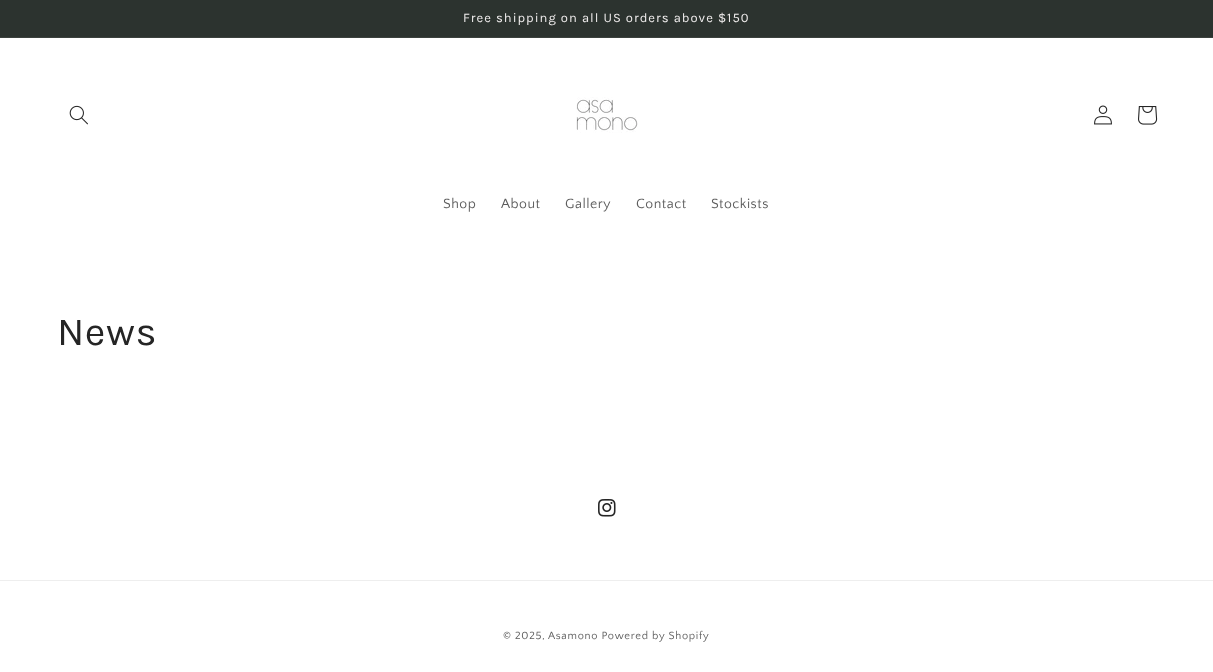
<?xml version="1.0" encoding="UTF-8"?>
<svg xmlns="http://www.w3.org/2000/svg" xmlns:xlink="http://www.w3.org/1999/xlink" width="1213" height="672">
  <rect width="100%" height="100%" fill="#ffffff" />
  <rect width="1213" height="37" fill="#2c332f" />
  <rect y="37" width="1213" height="1" fill="#3c423e" />
  <image x="69" y="105" width="19" height="20" xlink:href="image1.png" />
  <image x="576" y="97" width="62" height="36" xlink:href="image2.png" />
  <image x="1094" y="105" width="18" height="20" xlink:href="image3.png" />
  <image x="1138" y="106" width="20" height="19" xlink:href="image4.png" />
  <image x="598" y="499" width="18" height="18" xlink:href="image5.png" />
  <rect y="580" width="1213" height="1" fill="#eeeeee" />
  <text x="463" y="22" style="font-family: Karla; font-size: 13px; letter-spacing: 1px; fill: #efecec">Free shipping on all US orders above $150</text>
  <text x="443" y="208" style="font-family: Quattrocento Sans; font-size: 14px; letter-spacing: 0.5px; fill: #5c5c5c">Shop</text>
  <text x="501" y="208" style="font-family: Quattrocento Sans; font-size: 14px; letter-spacing: 0.5px; fill: #5c5c5c">About</text>
  <text x="565" y="208" style="font-family: Quattrocento Sans; font-size: 14px; letter-spacing: 0.5px; fill: #5c5c5c">Gallery</text>
  <text x="636" y="208" style="font-family: Quattrocento Sans; font-size: 14px; letter-spacing: 0.5px; fill: #5c5c5c">Contact</text>
  <text x="711" y="208" style="font-family: Quattrocento Sans; font-size: 14px; letter-spacing: 0.5px; fill: #5c5c5c">Stockists</text>
  <text x="57" y="345" style="font-family: Karla; font-size: 40px; letter-spacing: 0.5px; fill: #252525">News</text>
  <text x="503" y="639" style="font-family: Quattrocento Sans; font-size: 11px; letter-spacing: 0.7px; fill: #5c5c5c">© 2025,</text>
  <text x="548" y="639" style="font-family: Quattrocento Sans; font-size: 11px; letter-spacing: 0.7px; fill: #5c5c5c">Asamono Powered by Shopify</text>
</svg>
